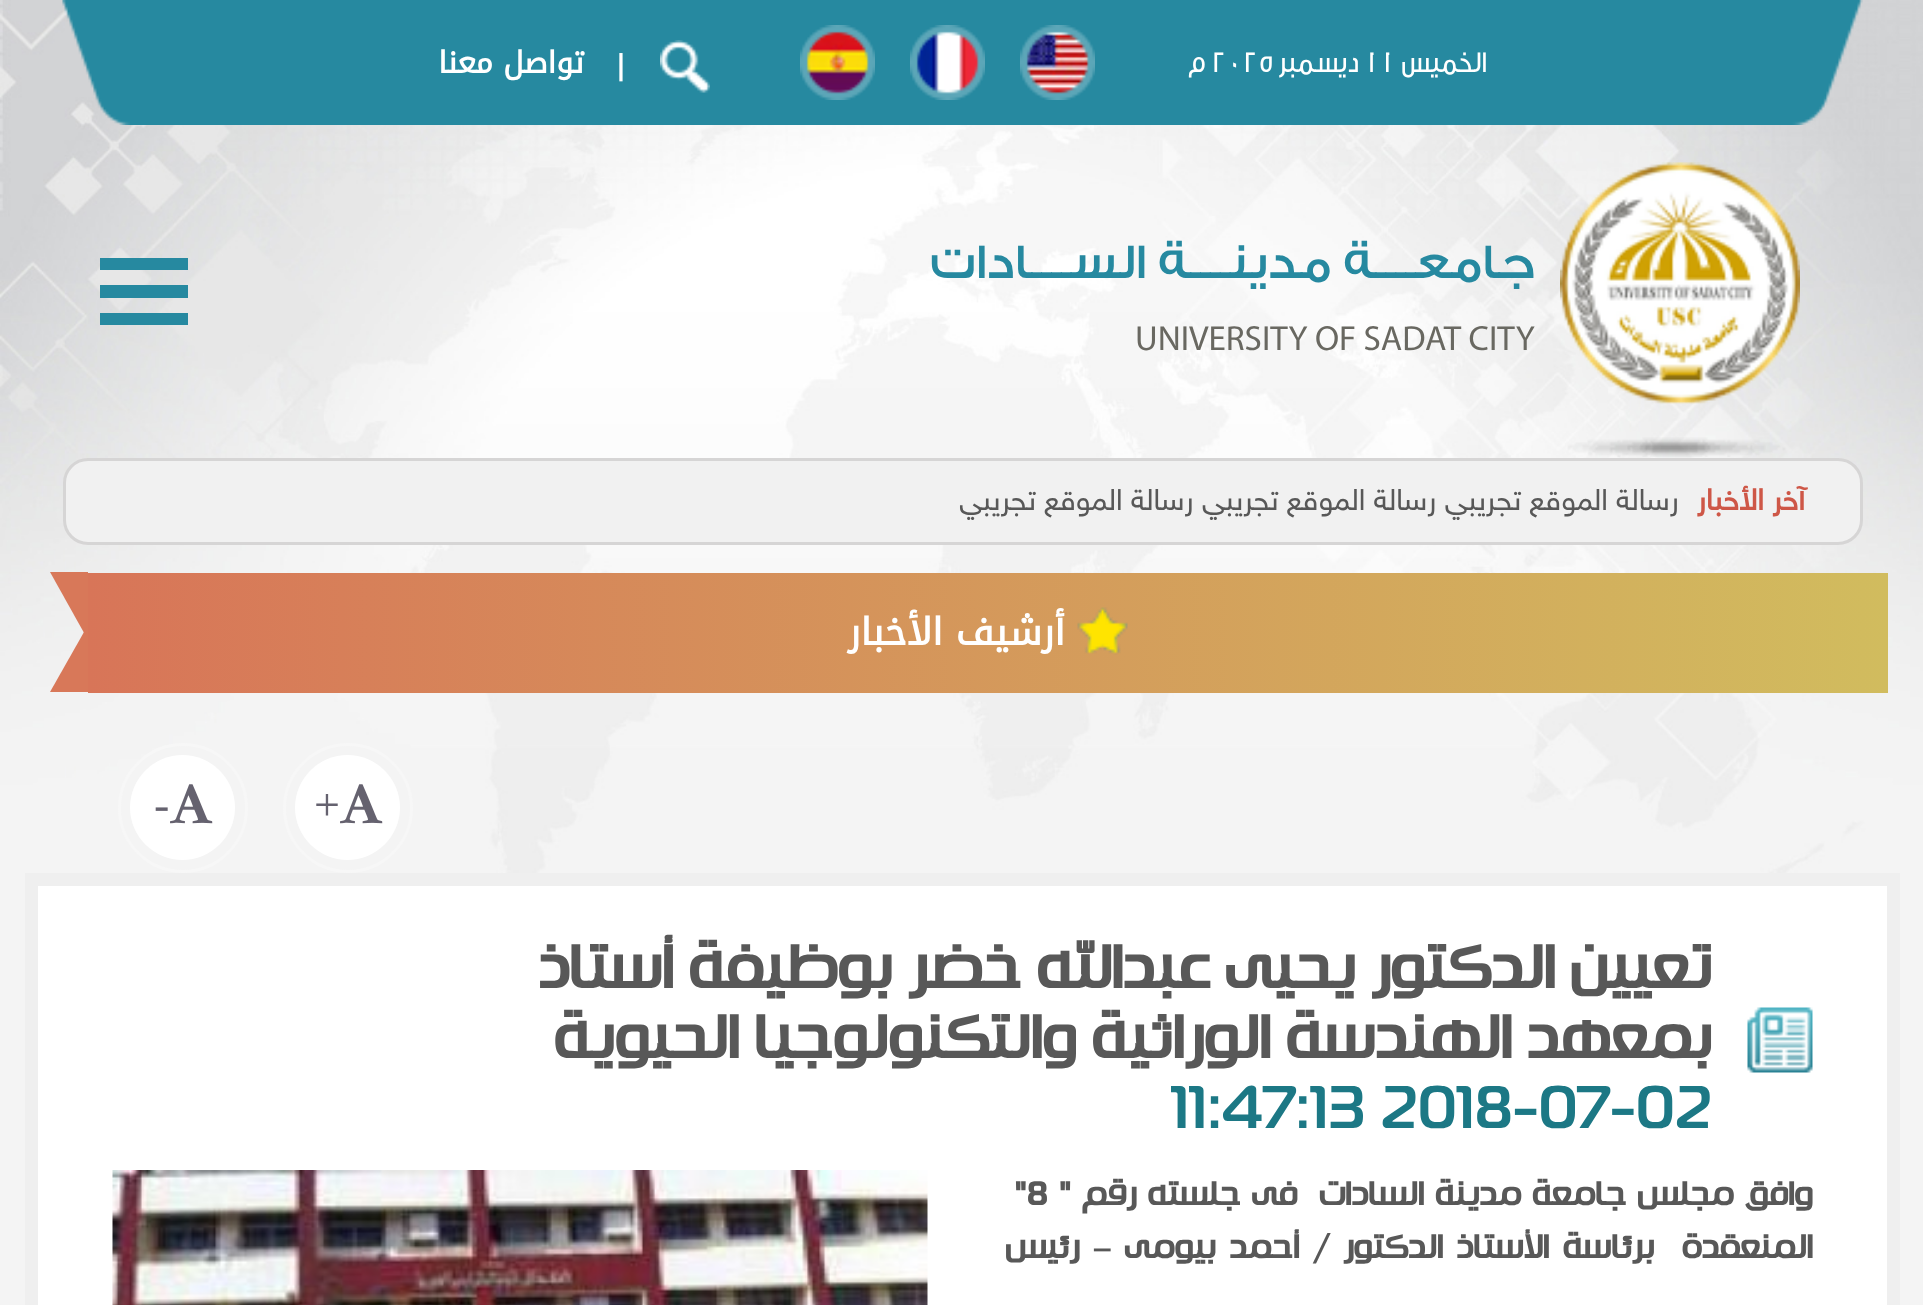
<?xml version="1.0" encoding="UTF-8"?>
<svg xmlns="http://www.w3.org/2000/svg" xmlns:xlink="http://www.w3.org/1999/xlink" width="1923" height="1305">
  <defs>
    <linearGradient id="g1" gradientUnits="userSpaceOnUse" x1="88" y1="633" x2="1888" y2="632"><stop offset="0" stop-color="#d87558" /><stop offset="1" stop-color="#d1bc5e" /></linearGradient>
  </defs>
  <rect width="100%" height="100%" fill="#f4f4f4" />
  <image x="0" y="0" width="1923" height="915" xlink:href="image1.png" />
  <image x="62" y="0" width="1801" height="125" xlink:href="image2.png" />
  <image x="1020" y="25" width="75" height="75" xlink:href="image3.png" />
  <image x="910" y="25" width="75" height="75" xlink:href="image4.png" />
  <image x="800" y="25" width="75" height="75" xlink:href="image5.png" />
  <image x="660" y="40" width="50" height="53" xlink:href="image6.png" />
  <image x="1560" y="162" width="240" height="295" xlink:href="image7.png" />
  <rect x="100" y="258" width="88" height="12" fill="#2689a0" />
  <rect x="100" y="285" width="88" height="13" fill="#2689a0" />
  <rect x="100" y="313" width="88" height="12" fill="#2689a0" />
  <rect x="64.5" y="459.5" width="1797" height="84" rx="23.5" fill="#f1f1f1" stroke="#d6d5d5" stroke-width="3" />
  <rect x="88" y="573" width="1800" height="120" fill="url(#g1)" />
  <image x="1077" y="607" width="51" height="48" xlink:href="image8.png" />
  <path d="M 50 572 h 38 v 68 z" fill="#d87859" />
  <path d="M 88 692 h -38 l 38 -67 z" fill="#d87859" />
  <circle cx="348" cy="808" r="63.5" fill="none" stroke="#f7f7f7" stroke-width="3" />
  <circle cx="347.5" cy="807.5" r="52.5" fill="#ffffff" />
  <image x="340" y="784" width="43" height="40" xlink:href="image9.png" />
  <circle cx="183" cy="808" r="63.5" fill="none" stroke="#f7f7f7" stroke-width="3" />
  <circle cx="182.5" cy="807.5" r="52.5" fill="#ffffff" />
  <image x="170" y="784" width="43" height="40" xlink:href="image9.png" />
  <rect x="31.5" y="879.5" width="1862" height="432" fill="#ffffff" stroke="#efefef" stroke-width="13" />
  <image x="1747" y="1007" width="66" height="66" xlink:href="image10.png" />
  <image x="112" y="1170" width="816" height="135" xlink:href="image11.png" />
  <text x="1487" y="72" style="font-family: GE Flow; font-size: 30px; direction: rtl; fill: #ffffff">الخميس</text>
  <text x="1364" y="72" style="font-family: GE Flow; font-size: 30px; fill: #ffffff">11</text>
  <text x="1359" y="72" style="font-family: GE Flow; font-size: 30px; direction: rtl; fill: #ffffff">ديسمبر</text>
  <text x="1211" y="72" style="font-family: GE Flow; font-size: 30px; fill: #ffffff">2025</text>
  <text x="1206" y="72" style="font-family: GE Flow; font-size: 30px; direction: rtl; fill: #ffffff">م</text>
  <text x="617" y="79" style="font-family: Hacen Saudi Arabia; font-size: 32.5px; fill: #ffffff">|</text>
  <text x="584" y="73" style="font-family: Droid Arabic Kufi; font-size: 30px; font-weight: bold; direction: rtl; fill: #ffffff">تواصل معنا</text>
  <text x="1535" y="278" style="font-family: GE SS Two; font-size: 50px; font-weight: 500; direction: rtl; fill: #2689a0">جامعــــة مدينــــة الســــادات</text>
  <text x="1135" y="350" style="font-family: Myriad; font-size: 35px; fill: #696861">UNIVERSITY OF SADAT CITY</text>
  <text x="1805" y="510" style="font-family: 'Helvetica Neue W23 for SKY'; font-size: 30px; font-weight: bold; direction: rtl; fill: #ce5747">آخر الأخبار</text>
  <text x="1679" y="510" style="font-family: 'Helvetica Neue W23 for SKY'; font-size: 30px; direction: rtl; fill: #585858">رسالة الموقع تجريبي رسالة الموقع تجريبي رسالة الموقع تجريبي</text>
  <text x="1065" y="645" style="font-family: Droid Arabic Kufi; font-size: 37.5px; font-weight: bold; direction: rtl; fill: #ffffff">أرشيف الأخبار</text>
  <text x="314" y="820" style="font-family: Liberation Serif; font-size: 46px; fill: #65626f">+</text>
  <text x="154" y="820" style="font-family: Liberation Serif; font-size: 46px; fill: #65626f">-</text>
  <text x="1712" y="988" style="font-family: Hacen Saudi Arabia; font-size: 60px; font-weight: bold; direction: rtl; fill: #585858">تعيين الدكتور يحيى عبدالله خضر بوظيفة أستاذ</text>
  <text x="1712" y="1058" style="font-family: Hacen Saudi Arabia; font-size: 60px; font-weight: bold; direction: rtl; fill: #585858">بمعهد الهندسة الوراثية والتكنولوجيا الحيوية</text>
  <text x="1171" y="1128" style="font-family: Hacen Saudi Arabia; font-size: 60px; fill: #1c7885">11:47:13 2018-07-02</text>
  <text x="1813" y="1205" word-spacing="2.75" style="font-family: Hacen Saudi Arabia; font-size: 32.5px; font-weight: bold; direction: rtl; fill: #585858" xml:space="preserve">وافق مجلس جامعة مدينة السادات  فى جلسته رقم "</text>
  <text x="1014" y="1205" style="font-family: Hacen Saudi Arabia; font-size: 32.5px; font-weight: bold; fill: #585858">"8</text>
  <text x="1813" y="1258" word-spacing="5.5" style="font-family: Hacen Saudi Arabia; font-size: 32.5px; font-weight: bold; direction: rtl; fill: #585858" xml:space="preserve">المنعقدة  برئاسة الأستاذ الدكتور / أحمد بيومى – رئيس</text>
</svg>
